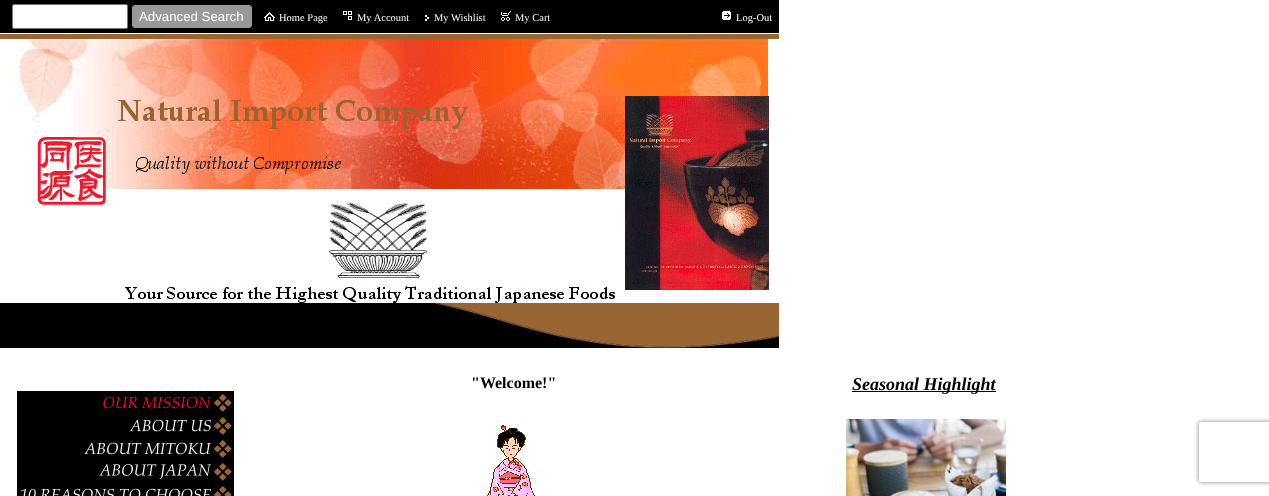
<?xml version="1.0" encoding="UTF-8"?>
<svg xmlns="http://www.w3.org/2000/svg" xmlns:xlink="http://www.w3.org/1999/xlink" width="1269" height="496">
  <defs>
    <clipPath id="clip1"><path d="M 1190 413 h 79 v 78 h -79 z m 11 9 h 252 c 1 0 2 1 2 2 v 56 c 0 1 -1 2 -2 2 h -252 c -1 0 -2 -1 -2 -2 v -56 c 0 -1 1 -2 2 -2 z" clip-rule="evenodd" /></clipPath>
  </defs>
  <rect width="100%" height="100%" fill="#ffffff" />
  <rect width="779" height="33" fill="#000000" />
  <rect x="12.5" y="4.5" width="115" height="24" rx="1.5" fill="#ffffff" stroke="#767676" />
  <rect x="132.5" y="5.5" width="119" height="22" rx="2.5" fill="#999999" stroke="#999999" />
  <image x="264" y="12" width="11" height="9" xlink:href="image1.png" />
  <image x="343" y="11" width="9" height="9" xlink:href="image2.png" />
  <image x="425" y="15" width="4" height="6" xlink:href="image3.png" />
  <image x="501" y="11" width="10" height="10" xlink:href="image4.png" />
  <image x="722" y="11" width="9" height="9" xlink:href="image5.png" />
  <rect y="34" width="779" height="5" fill="#996633" />
  <image x="8" y="39" width="761" height="264" xlink:href="image6.png" />
  <image x="0" y="303" width="779" height="45" xlink:href="image7.png" />
  <image x="487" y="425" width="48" height="71" xlink:href="image8.png" />
  <rect x="852" y="391" width="144" height="1" fill="#000000" />
  <image x="846" y="419" width="160" height="77" xlink:href="image9.png" />
  <image x="17" y="391" width="217" height="23" xlink:href="image10.png" />
  <image x="17" y="414" width="217" height="23" xlink:href="image11.png" />
  <image x="17" y="437" width="217" height="23" xlink:href="image12.png" />
  <image x="17" y="460" width="217" height="23" xlink:href="image13.png" />
  <image x="17" y="483" width="217" height="13" xlink:href="image14.png" />
  <g clip-path="url(#clip1)">
    <rect x="1199" y="422" width="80" height="60" rx="2" fill="#808080" filter="blur(2.5px)" />
  </g>
  <text x="139" y="21" style="font-family: Liberation Sans; font-size: 13.25px; fill: #ffffff">Advanced Search</text>
  <text x="279" y="21" style="font-family: Liberation Serif; font-size: 10.5px; fill: #ffffff">Home Page</text>
  <text x="357" y="21" style="font-family: Liberation Serif; font-size: 10.5px; fill: #ffffff">My Account</text>
  <text x="434" y="21" style="font-family: Liberation Serif; font-size: 10.5px; fill: #ffffff">My Wishlist</text>
  <text x="515" y="21" style="font-family: Liberation Serif; font-size: 10.5px; fill: #ffffff">My Cart</text>
  <text x="736" y="21" style="font-family: Liberation Serif; font-size: 10.5px; fill: #ffffff">Log-Out</text>
  <text x="471" y="388" style="font-family: Liberation Serif; font-size: 16px; font-weight: bold; fill: #000000">"Welcome!"</text>
  <text x="852" y="390" style="font-family: Liberation Serif; font-size: 18px; font-weight: bold; font-style: italic; fill: #000000">Seasonal Highlight</text>
</svg>
